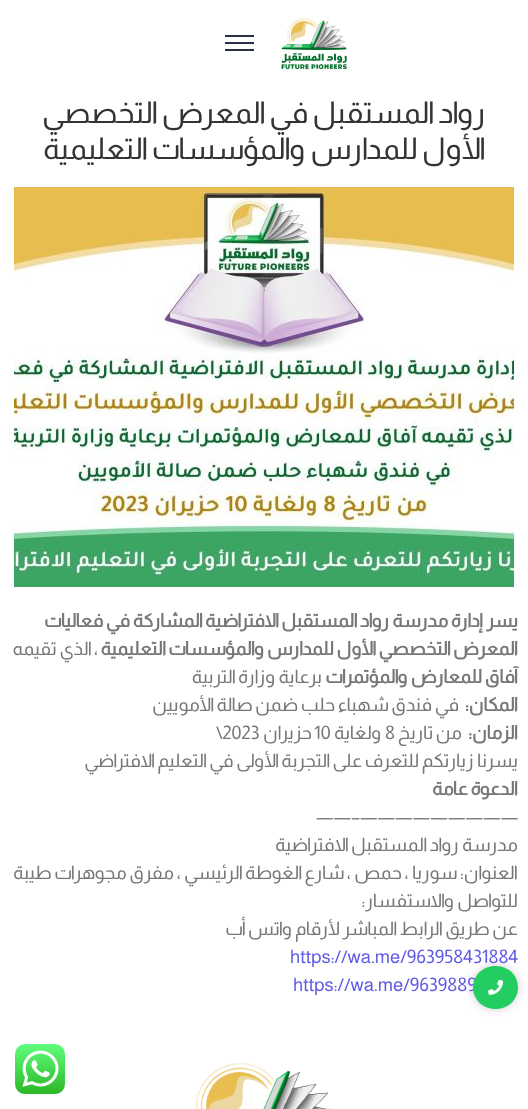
<?xml version="1.0" encoding="UTF-8"?>
<svg xmlns="http://www.w3.org/2000/svg" xmlns:xlink="http://www.w3.org/1999/xlink" width="528" height="1109">
  <rect width="100%" height="100%" fill="#ffffff" />
  <image x="281" y="17" width="66" height="53" xlink:href="image1.png" />
  <rect x="225" y="35" width="29" height="2" fill="#292e49" />
  <rect x="225" y="42" width="29" height="2" fill="#292e49" />
  <rect x="225" y="49" width="29" height="2" fill="#292e49" />
  <image x="14" y="187" width="500" height="400" xlink:href="image2.png" />
  <rect x="473" y="966" width="45" height="43" rx="21.5" fill="#000000" fill-opacity="0.2" filter="blur(5px)" />
  <image x="196" y="1062" width="134" height="47" xlink:href="image4.png" />
  <image x="15" y="1044" width="50" height="50" xlink:href="image5.png" />
  <text x="485" y="123" style="font-family: Almarai; font-size: 30px; direction: rtl; fill: #333333">رواد المستقبل في المعرض التخصصي</text>
  <text x="486" y="159" style="font-family: Almarai; font-size: 30px; direction: rtl; fill: #333333">الأول للمدارس والمؤسسات التعليمية</text>
  <text x="518" y="627" style="font-family: Almarai; font-size: 18.7px; font-weight: bold; direction: rtl; fill: #777777">يسر إدارة مدرسة رواد المستقبل الافتراضية المشاركة في فعاليات</text>
  <text x="518" y="655" style="font-family: Almarai; font-size: 18.7px; font-weight: bold; direction: rtl; fill: #777777">المعرض التخصصي الأول للمدارس والمؤسسات التعليمية</text>
  <text x="98" y="655" style="font-family: Almarai; font-size: 18.7px; direction: rtl; fill: #777777">، الذي تقيمه</text>
  <text x="518" y="683" style="font-family: Almarai; font-size: 18.7px; font-weight: bold; direction: rtl; fill: #777777">آفاق للمعارض والمؤتمرات</text>
  <text x="322" y="683" style="font-family: Almarai; font-size: 18.7px; direction: rtl; fill: #777777">برعاية وزارة التربية</text>
  <text x="518" y="711" style="font-family: Almarai; font-size: 18.7px; font-weight: bold; direction: rtl; fill: #777777">المكان:</text>
  <text x="459" y="711" style="font-family: Almarai; font-size: 18.7px; direction: rtl; fill: #777777">في فندق شهباء حلب ضمن صالة الأمويين</text>
  <text x="518" y="739" style="font-family: Almarai; font-size: 18.7px; font-weight: bold; direction: rtl; fill: #777777">الزمان:</text>
  <text x="462" y="739" style="font-family: Almarai; font-size: 18.7px; direction: rtl; fill: #777777">من تاريخ</text>
  <text x="385" y="739" style="font-family: Almarai; font-size: 18.7px; fill: #777777">8</text>
  <text x="381" y="739" style="font-family: Almarai; font-size: 18.7px; direction: rtl; fill: #777777">ولغاية</text>
  <text x="314" y="739" style="font-family: Almarai; font-size: 18.7px; fill: #777777">10</text>
  <text x="312" y="739" style="font-family: Almarai; font-size: 18.7px; direction: rtl; fill: #777777">حزيران</text>
  <text x="216" y="739" style="font-family: Almarai; font-size: 18.7px; fill: #777777">\2023</text>
  <text x="518" y="767" style="font-family: Almarai; font-size: 18.7px; direction: rtl; fill: #777777">يسرنا زيارتكم للتعرف على التجربة الأولى في التعليم الافتراضي</text>
  <text x="518" y="795" style="font-family: Almarai; font-size: 18.7px; font-weight: bold; direction: rtl; fill: #777777">الدعوة عامة</text>
  <text x="316" y="823" style="font-family: Almarai; font-size: 18.7px; fill: #777777">——–—————————</text>
  <text x="518" y="851" style="font-family: Almarai; font-size: 18.7px; direction: rtl; fill: #777777">مدرسة رواد المستقبل الافتراضية</text>
  <text x="518" y="879" style="font-family: Almarai; font-size: 18.7px; direction: rtl; fill: #777777">العنوان: سوريا ، حمص ، شارع الغوطة الرئيسي ، مفرق مجوهرات طيبة</text>
  <text x="518" y="907" style="font-family: Almarai; font-size: 18.7px; direction: rtl; fill: #777777">للتواصل والاستفسار:</text>
  <text x="518" y="935" style="font-family: Almarai; font-size: 18.7px; direction: rtl; fill: #777777">عن طريق الرابط المباشر لأرقام واتس أب</text>
  <text x="290" y="963" style="font-family: Almarai; font-size: 18.7px; fill: #605be5">https://wa.me/963958431884</text>
  <text x="293" y="991" style="font-family: Almarai; font-size: 18.7px; fill: #605be5">https://wa.me/9639889</text>
  <rect x="473" y="966" width="45" height="43" rx="21.5" fill="#23cd62" />
  <image x="488" y="979" width="15" height="16" xlink:href="image3.png" />
</svg>
